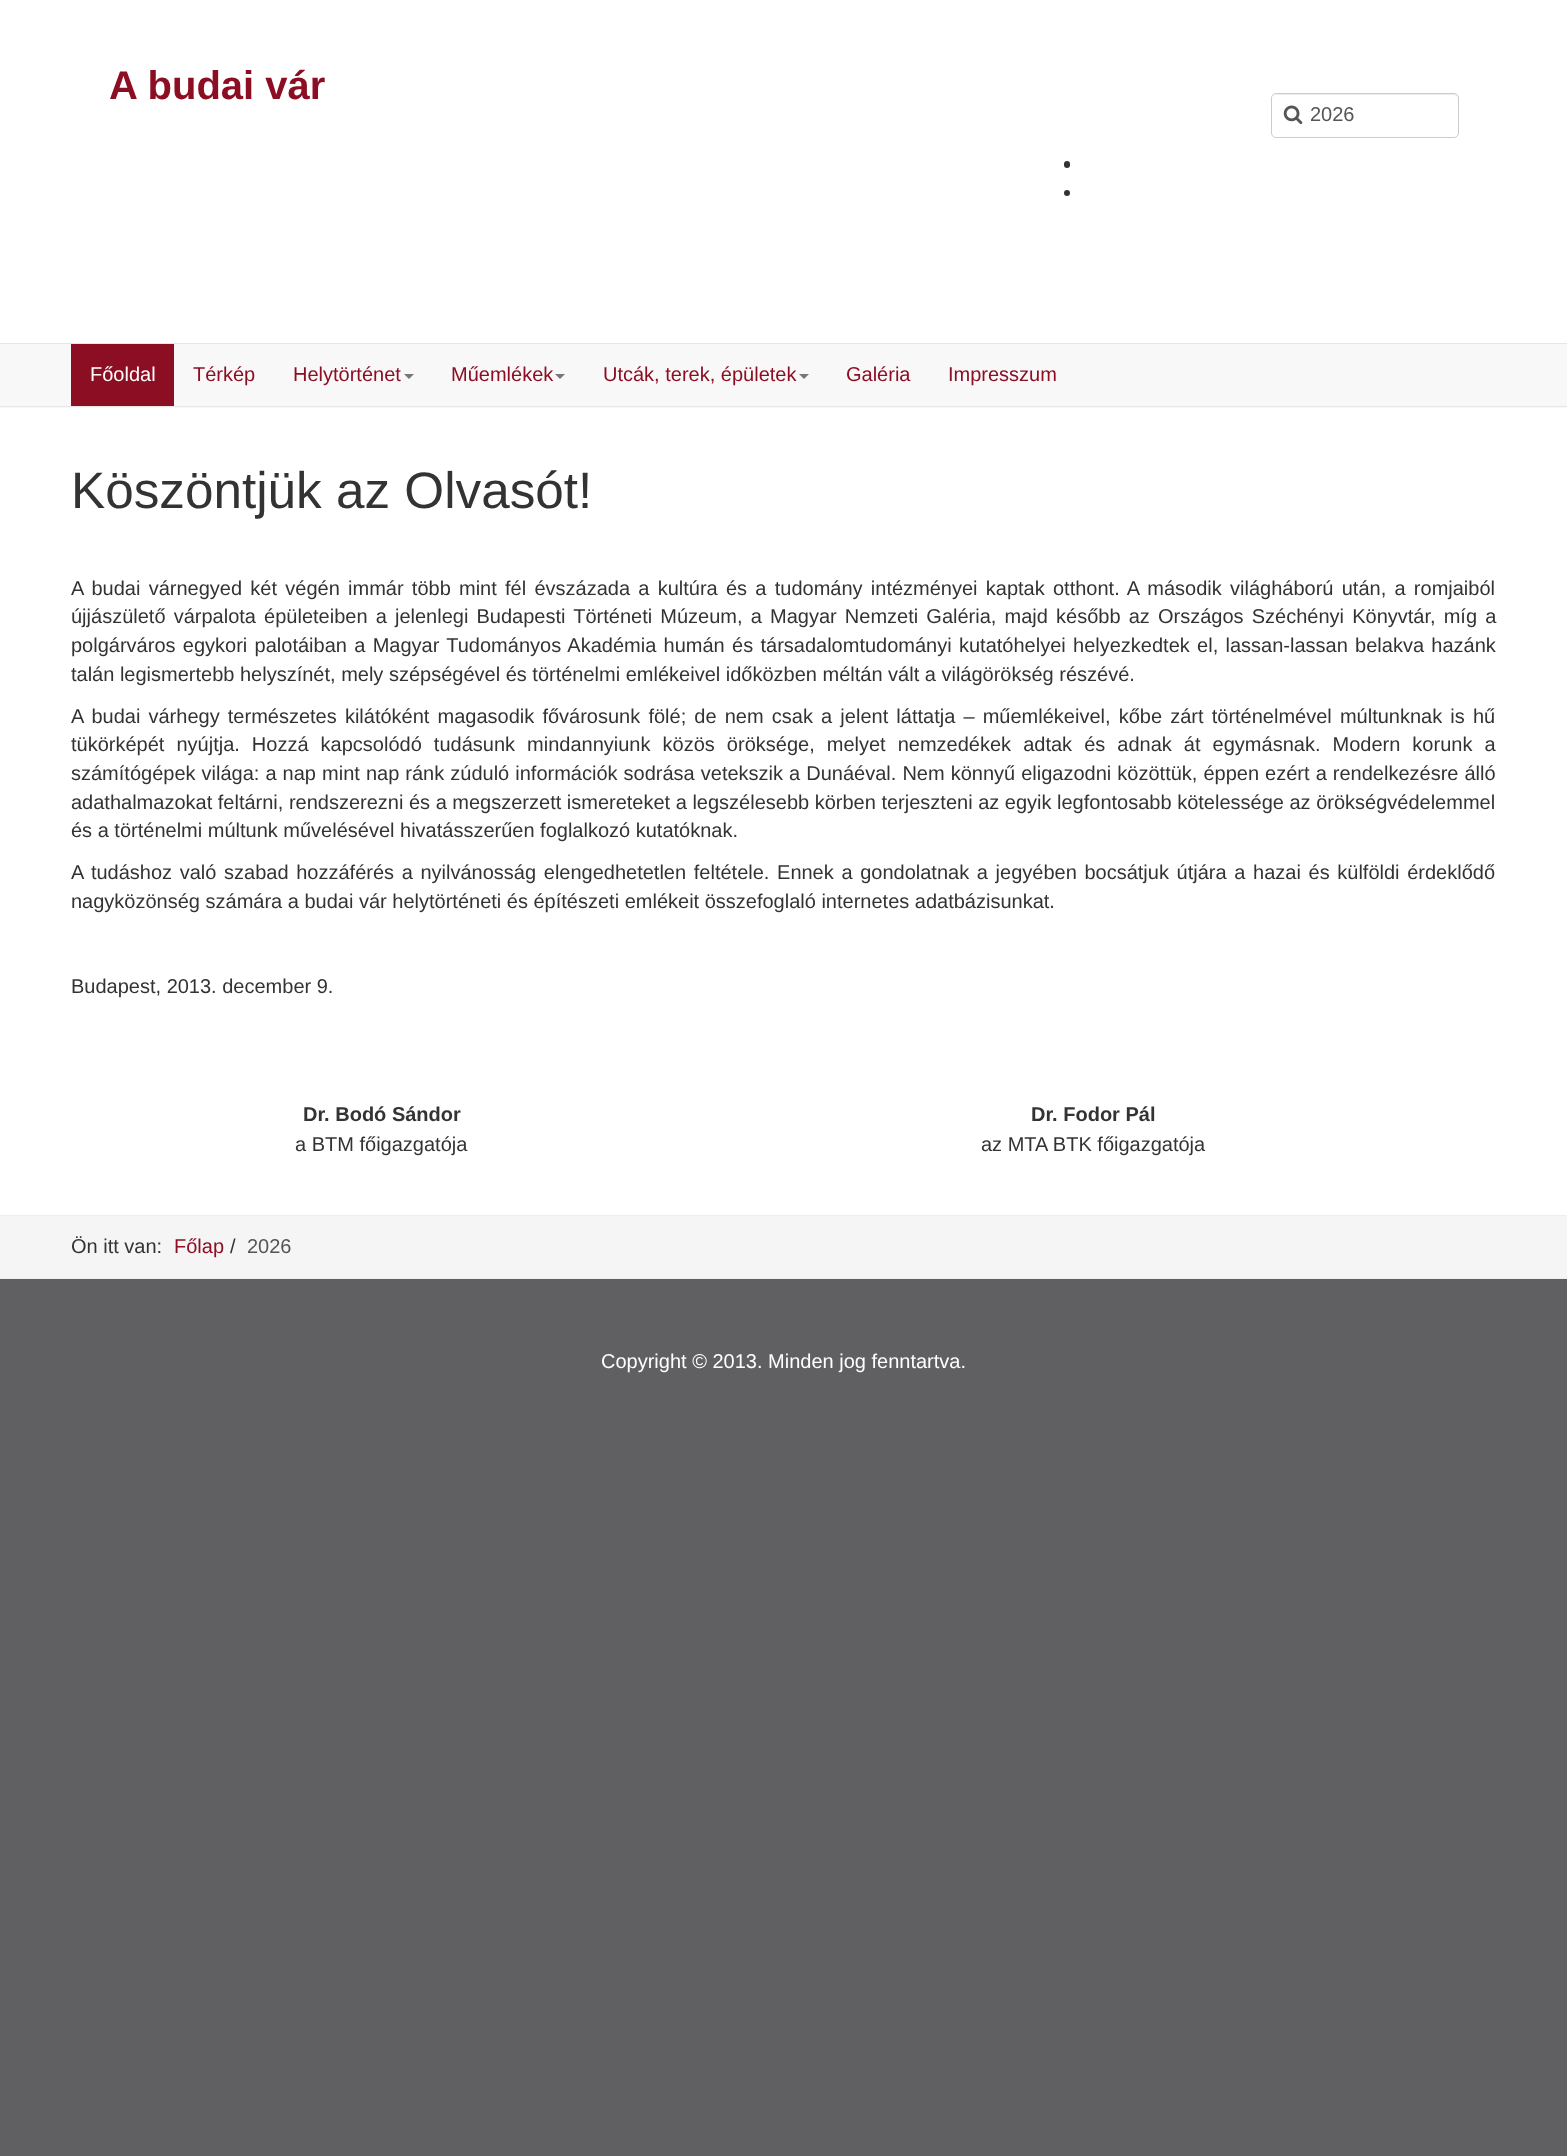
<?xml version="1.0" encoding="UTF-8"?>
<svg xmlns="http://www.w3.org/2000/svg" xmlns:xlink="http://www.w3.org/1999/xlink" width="1567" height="2156">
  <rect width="100%" height="100%" fill="#605f61" />
  <rect width="1567" height="1215" fill="#ffffff" />
  <path d="M 1276 95 h 178 c 2 0 4 2 4 4 v -1 c 0 -2 -2 -4 -4 -4 h -177 c -1 0 -3 1 -3 2 z" fill="#ececec" />
  <rect x="1271.5" y="93.5" width="187" height="44" rx="4.5" fill="none" stroke="#cccccc" />
  <image x="1283" y="105" width="20" height="20" xlink:href="image1.png" />
  <rect x="1064" y="161" width="6" height="7" rx="3" fill="#333333" />
  <circle cx="1067" cy="193" r="3" fill="#333333" />
  <rect y="344" width="1567" height="64" fill="#f8f8f8" />
  <rect y="343" width="1567" height="1" fill="#e7e7e7" />
  <rect y="406" width="1567" height="1" fill="#e7e7e7" />
  <rect x="71" y="344" width="103" height="62" fill="#8c0e23" />
  <path d="M 404 374 h 10 l -5 5 z" fill="#777777" />
  <path d="M 555 374 h 10 l -5 5 z" fill="#777777" />
  <path d="M 799 374 h 10 l -5 5 z" fill="#777777" />
  <rect y="1216" width="1567" height="62" fill="#f5f5f5" />
  <rect y="1215" width="1567" height="1" fill="#eeeeee" />
  <rect y="1278" width="1567" height="1" fill="#eeeeee" />
  <text x="109" y="99" style="font-family: Liberation Sans; font-size: 40px; font-weight: bold; fill: #8c0e23">A budai vár</text>
  <text x="1310" y="121" style="font-family: Liberation Sans; font-size: 20px; fill: #555555">2026</text>
  <text x="90" y="381" style="font-family: Liberation Sans; font-size: 20px; fill: #ffffff">Főoldal</text>
  <text x="193" y="381" style="font-family: Liberation Sans; font-size: 20px; fill: #8c0e23">Térkép</text>
  <text x="293" y="381" style="font-family: Liberation Sans; font-size: 20px; fill: #8c0e23">Helytörténet</text>
  <text x="451" y="381" style="font-family: Liberation Sans; font-size: 20px; fill: #8c0e23">Műemlékek</text>
  <text x="603" y="381" style="font-family: Liberation Sans; font-size: 20px; fill: #8c0e23">Utcák, terek, épületek</text>
  <text x="846" y="381" style="font-family: Liberation Sans; font-size: 20px; fill: #8c0e23">Galéria</text>
  <text x="948" y="381" style="font-family: Liberation Sans; font-size: 20px; fill: #8c0e23">Impresszum</text>
  <text x="71" y="508" style="font-family: Liberation Sans; font-size: 51.25px; fill: #333333">Köszöntjük az Olvasót!</text>
  <text x="71" y="595" word-spacing="2.7" style="font-family: Liberation Sans; font-size: 20px; fill: #333333">A budai várnegyed két végén immár több mint fél évszázada a kultúra és a tudomány intézményei kaptak otthont. A második világháború után, a romjaiból</text>
  <text x="71" y="623" word-spacing="2.6" style="font-family: Liberation Sans; font-size: 20px; fill: #333333">újjászülető várpalota épületeiben a jelenlegi Budapesti Történeti Múzeum, a Magyar Nemzeti Galéria, majd később az Országos Széchényi Könyvtár, míg a</text>
  <text x="71" y="652" word-spacing="1.75" style="font-family: Liberation Sans; font-size: 20px; fill: #333333">polgárváros egykori palotáiban a Magyar Tudományos Akadémia humán és társadalomtudományi kutatóhelyei helyezkedtek el, lassan-lassan belakva hazánk</text>
  <text x="71" y="681" style="font-family: Liberation Sans; font-size: 20px; fill: #333333">talán legismertebb helyszínét, mely szépségével és történelmi emlékeivel időközben méltán vált a világörökség részévé.</text>
  <text x="71" y="723" word-spacing="2.6" style="font-family: Liberation Sans; font-size: 20px; fill: #333333">A budai várhegy természetes kilátóként magasodik fővárosunk fölé; de nem csak a jelent láttatja – műemlékeivel, kőbe zárt történelmével múltunknak is hű</text>
  <text x="71" y="751" word-spacing="6.5" style="font-family: Liberation Sans; font-size: 20px; fill: #333333">tükörképét nyújtja. Hozzá kapcsolódó tudásunk mindannyiunk közös öröksége, melyet nemzedékek adtak és adnak át egymásnak. Modern korunk a</text>
  <text x="71" y="780" word-spacing="0.5" style="font-family: Liberation Sans; font-size: 20px; fill: #333333">számítógépek világa: a nap mint nap ránk zúduló információk sodrása vetekszik a Dunáéval. Nem könnyű eligazodni közöttük, éppen ezért a rendelkezésre álló</text>
  <text x="71" y="809" style="font-family: Liberation Sans; font-size: 20px; fill: #333333">adathalmazokat feltárni, rendszerezni és a megszerzett ismereteket a legszélesebb körben terjeszteni az egyik legfontosabb kötelessége az örökségvédelemmel</text>
  <text x="71" y="837" style="font-family: Liberation Sans; font-size: 20px; fill: #333333">és a történelmi múltunk művelésével hivatásszerűen foglalkozó kutatóknak.</text>
  <text x="71" y="879" word-spacing="2.1" style="font-family: Liberation Sans; font-size: 20px; fill: #333333">A tudáshoz való szabad hozzáférés a nyilvánosság elengedhetetlen feltétele. Ennek a gondolatnak a jegyében bocsátjuk útjára a hazai és külföldi érdeklődő</text>
  <text x="71" y="908" style="font-family: Liberation Sans; font-size: 20px; fill: #333333">nagyközönség számára a budai vár helytörténeti és építészeti emlékeit összefoglaló internetes adatbázisunkat.</text>
  <text x="71" y="993" style="font-family: Liberation Sans; font-size: 20px; fill: #333333">Budapest, 2013. december 9.</text>
  <text x="303" y="1121" style="font-family: Liberation Sans; font-size: 20px; font-weight: bold; fill: #333333">Dr. Bodó Sándor</text>
  <text x="1031" y="1121" style="font-family: Liberation Sans; font-size: 20px; font-weight: bold; fill: #333333">Dr. Fodor Pál</text>
  <text x="295" y="1151" style="font-family: Liberation Sans; font-size: 20px; fill: #333333">a BTM főigazgatója</text>
  <text x="981" y="1151" style="font-family: Liberation Sans; font-size: 20px; fill: #333333">az MTA BTK főigazgatója</text>
  <text x="71" y="1253" style="font-family: Liberation Sans; font-size: 20px; fill: #333333">Ön itt van:</text>
  <text x="174" y="1253" style="font-family: Liberation Sans; font-size: 20px; fill: #8c0e23">Főlap</text>
  <text x="230" y="1253" style="font-family: Liberation Sans; font-size: 20px; fill: #333333">/</text>
  <text x="247" y="1253" style="font-family: Liberation Sans; font-size: 20px; fill: #555555">2026</text>
  <text x="601" y="1368" style="font-family: Liberation Sans; font-size: 20px; fill: #ffffff">Copyright © 2013. Minden jog fenntartva.</text>
</svg>
